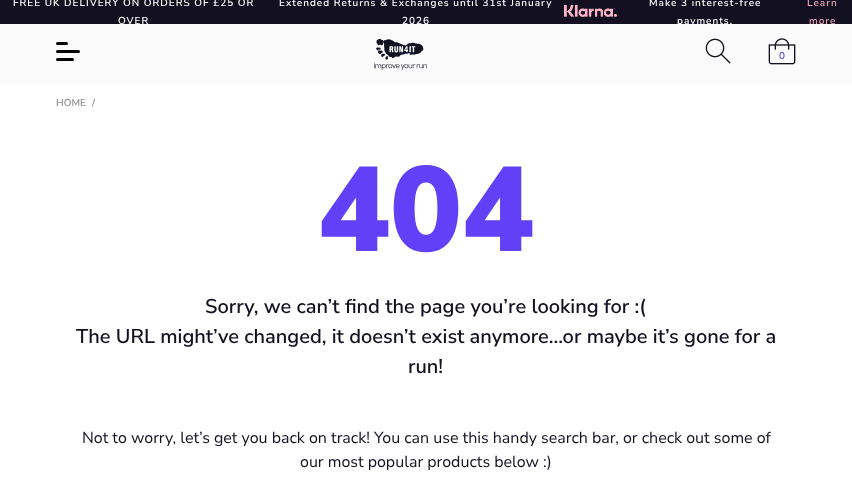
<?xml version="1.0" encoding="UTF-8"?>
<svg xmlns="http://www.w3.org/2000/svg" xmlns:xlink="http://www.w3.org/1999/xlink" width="852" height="502">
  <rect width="100%" height="100%" fill="#ffffff" />
  <rect width="852" height="24" fill="#131121" />
  <image x="564" y="5" width="53" height="12" xlink:href="image1.png" />
  <text x="13" y="6" style="font-family: Nunito Sans; font-size: 10px; font-weight: 600; letter-spacing: 1px; fill: #ffffff">FREE UK DELIVERY ON ORDERS OF £25 OR</text>
  <text x="118" y="24" style="font-family: Nunito Sans; font-size: 10px; font-weight: 600; letter-spacing: 1px; fill: #ffffff">OVER</text>
  <text x="279" y="6" style="font-family: Nunito Sans; font-size: 10px; font-weight: 600; letter-spacing: 1px; fill: #ffffff">Extended Returns &amp; Exchanges until 31st January</text>
  <text x="402" y="24" style="font-family: Nunito Sans; font-size: 10px; font-weight: 600; letter-spacing: 1px; fill: #ffffff">2026</text>
  <text x="649" y="6" style="font-family: Nunito Sans; font-size: 10px; font-weight: 600; letter-spacing: 1px; fill: #ffffff">Make 3 interest-free</text>
  <text x="807" y="6" style="font-family: Nunito Sans; font-size: 10px; font-weight: 600; letter-spacing: 1px; fill: #eba5b7">Learn</text>
  <text x="809" y="24" style="font-family: Nunito Sans; font-size: 10px; font-weight: 600; letter-spacing: 1px; fill: #eba5b7">more</text>
  <text x="677" y="24" style="font-family: Nunito Sans; font-size: 10px; font-weight: 600; letter-spacing: 1px; fill: #ffffff">payments.</text>
  <rect y="24" width="852" height="60" fill="#fcfbfb" />
  <rect x="56" y="42" width="12" height="3" rx="1.5" fill="#000000" />
  <rect x="56" y="50" width="24" height="3" rx="1.5" fill="#000000" />
  <rect x="56" y="58" width="18" height="3" rx="1.5" fill="#000000" />
  <image x="374" y="39" width="53" height="31" xlink:href="image2.png" />
  <image x="705" y="38" width="26" height="26" xlink:href="image3.png" />
  <image x="768" y="38" width="28" height="27" xlink:href="image4.png" />
  <text x="779" y="59" style="font-family: Nunito Sans; font-size: 10px; font-weight: 600; fill: #6140f8">0</text>
  <text x="56" y="106" style="font-family: Nunito Sans; font-size: 10px; font-weight: 600; fill: #8e8d94">HOME</text>
  <text x="92" y="106" style="font-family: Nunito Sans; font-size: 10px; font-weight: 600; fill: #8e8d94">/</text>
  <text x="318" y="251" style="font-family: Nunito Sans; font-size: 120px; font-weight: 900; fill: #6140f8">404</text>
  <text x="205" y="313" style="font-family: Nunito Sans; font-size: 20px; font-weight: 600; fill: #131121">Sorry, we can’t find the page you’re looking for :(</text>
  <text x="76" y="343" style="font-family: Nunito Sans; font-size: 20px; font-weight: 600; fill: #131121">The URL might’ve changed, it doesn’t exist anymore…or maybe it’s gone for a</text>
  <text x="408" y="373" style="font-family: Nunito Sans; font-size: 20px; font-weight: 600; fill: #131121">run!</text>
  <text x="82" y="443" style="font-family: Nunito Sans; font-size: 16px; fill: #131121">Not to worry, let’s get you back on track! You can use this handy search bar, or check out some of</text>
  <text x="300" y="467" style="font-family: Nunito Sans; font-size: 16px; fill: #131121">our most popular products below :)</text>
</svg>
